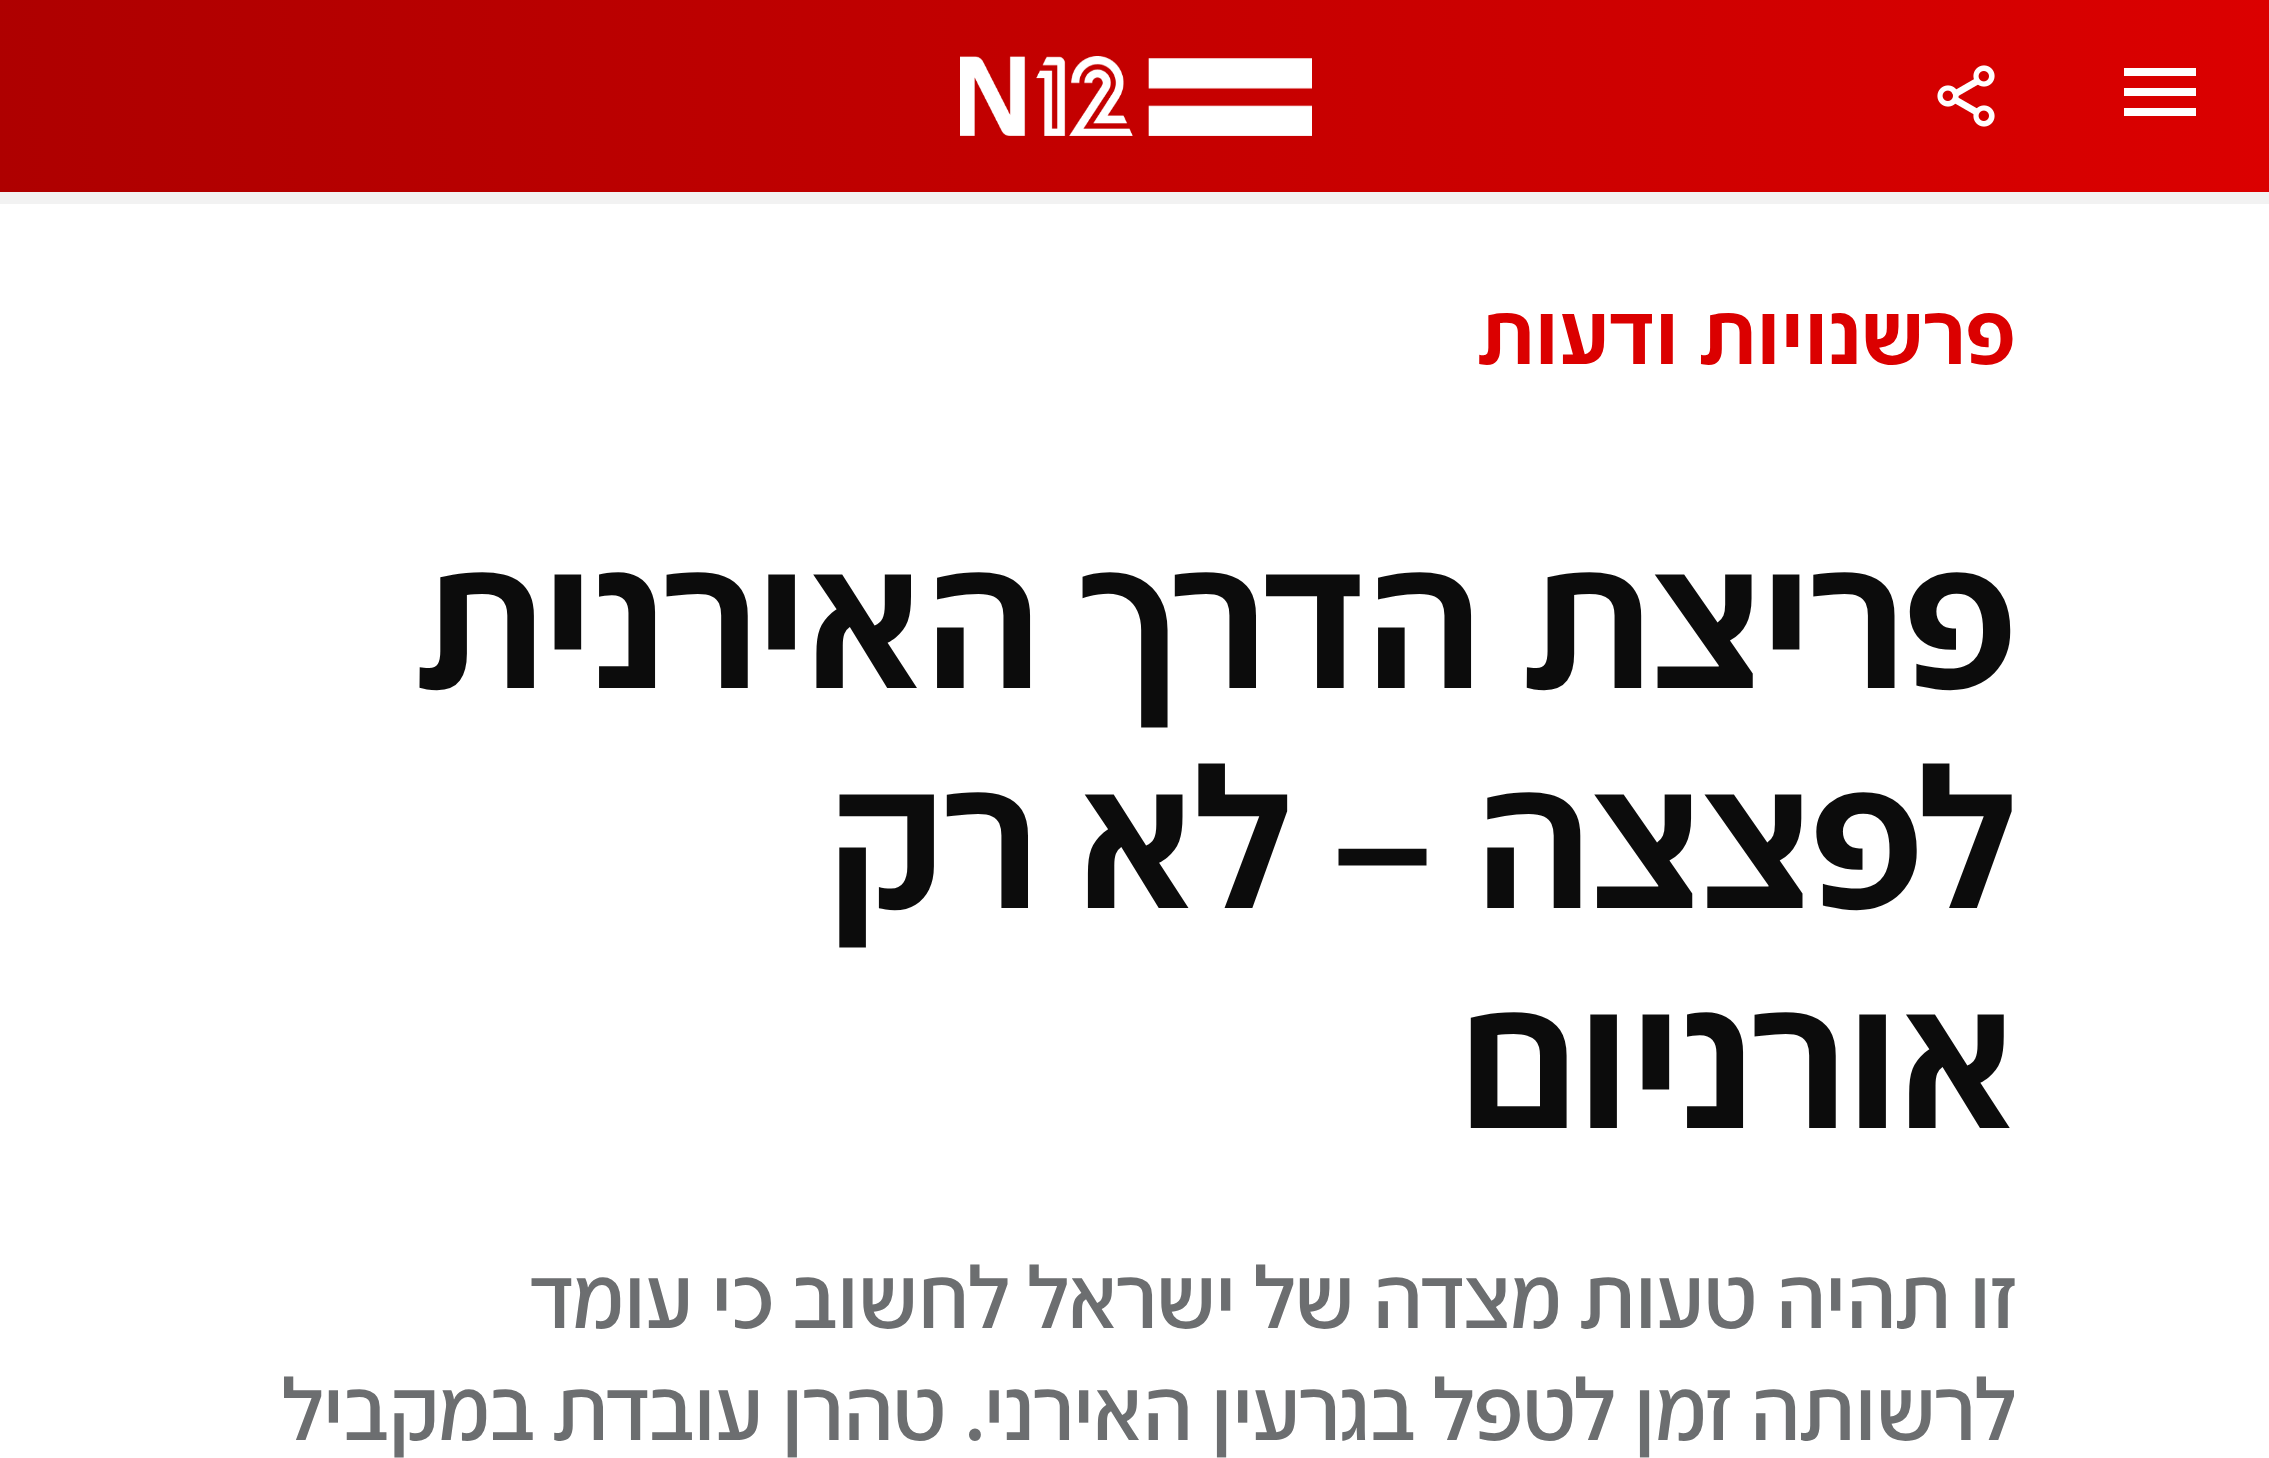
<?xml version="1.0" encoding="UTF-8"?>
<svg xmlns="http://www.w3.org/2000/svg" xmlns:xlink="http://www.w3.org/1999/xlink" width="2269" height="1458">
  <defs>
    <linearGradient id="g1" gradientUnits="userSpaceOnUse" x1="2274" y1="56" x2="-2" y2="136"><stop offset="0" stop-color="#db0000" /><stop offset="1" stop-color="#ae0000" /></linearGradient>
  </defs>
  <rect width="100%" height="100%" fill="#ffffff" />
  <rect width="2269" height="192" fill="url(#g1)" />
  <path d="M 2124 76 v -8 h 72 v 8 z m 0 20 h 72 v -8 h -72 z m 0 20 h 72 v -8 h -72 z" fill="#ffffff" fill-rule="evenodd" />
  <image x="1937" y="65" width="58" height="62" xlink:href="image1.png" />
  <image x="960" y="56" width="352" height="80" xlink:href="image2.png" />
  <rect y="192" width="2269" height="12" fill="#f2f2f2" />
  <text x="2016" y="364" style="font-family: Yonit; font-size: 88px; font-weight: 500; letter-spacing: 0.9px; direction: rtl; fill: #db0000">פרשנויות ודעות</text>
  <text x="2016" y="688" style="font-family: Yonit; font-size: 200px; font-weight: 500; direction: rtl; fill: #0c0c0c">פריצת הדרך האירנית</text>
  <text x="2016" y="908" style="font-family: Yonit; font-size: 200px; font-weight: 500; direction: rtl; fill: #0c0c0c">לפצצה – לא רק</text>
  <text x="2016" y="1128" style="font-family: Yonit; font-size: 200px; font-weight: 500; direction: rtl; fill: #0c0c0c">אורניום</text>
  <text x="2016" y="1328" style="font-family: Yonit; font-size: 88px; direction: rtl; fill: #6c6e70">זו תהיה טעות מצדה של ישראל לחשוב כי עומד</text>
  <text x="2016" y="1440" style="font-family: Yonit; font-size: 88px; direction: rtl; fill: #6c6e70">לרשותה זמן לטפל בגרעין האירני. טהרן עובדת במקביל</text>
</svg>
